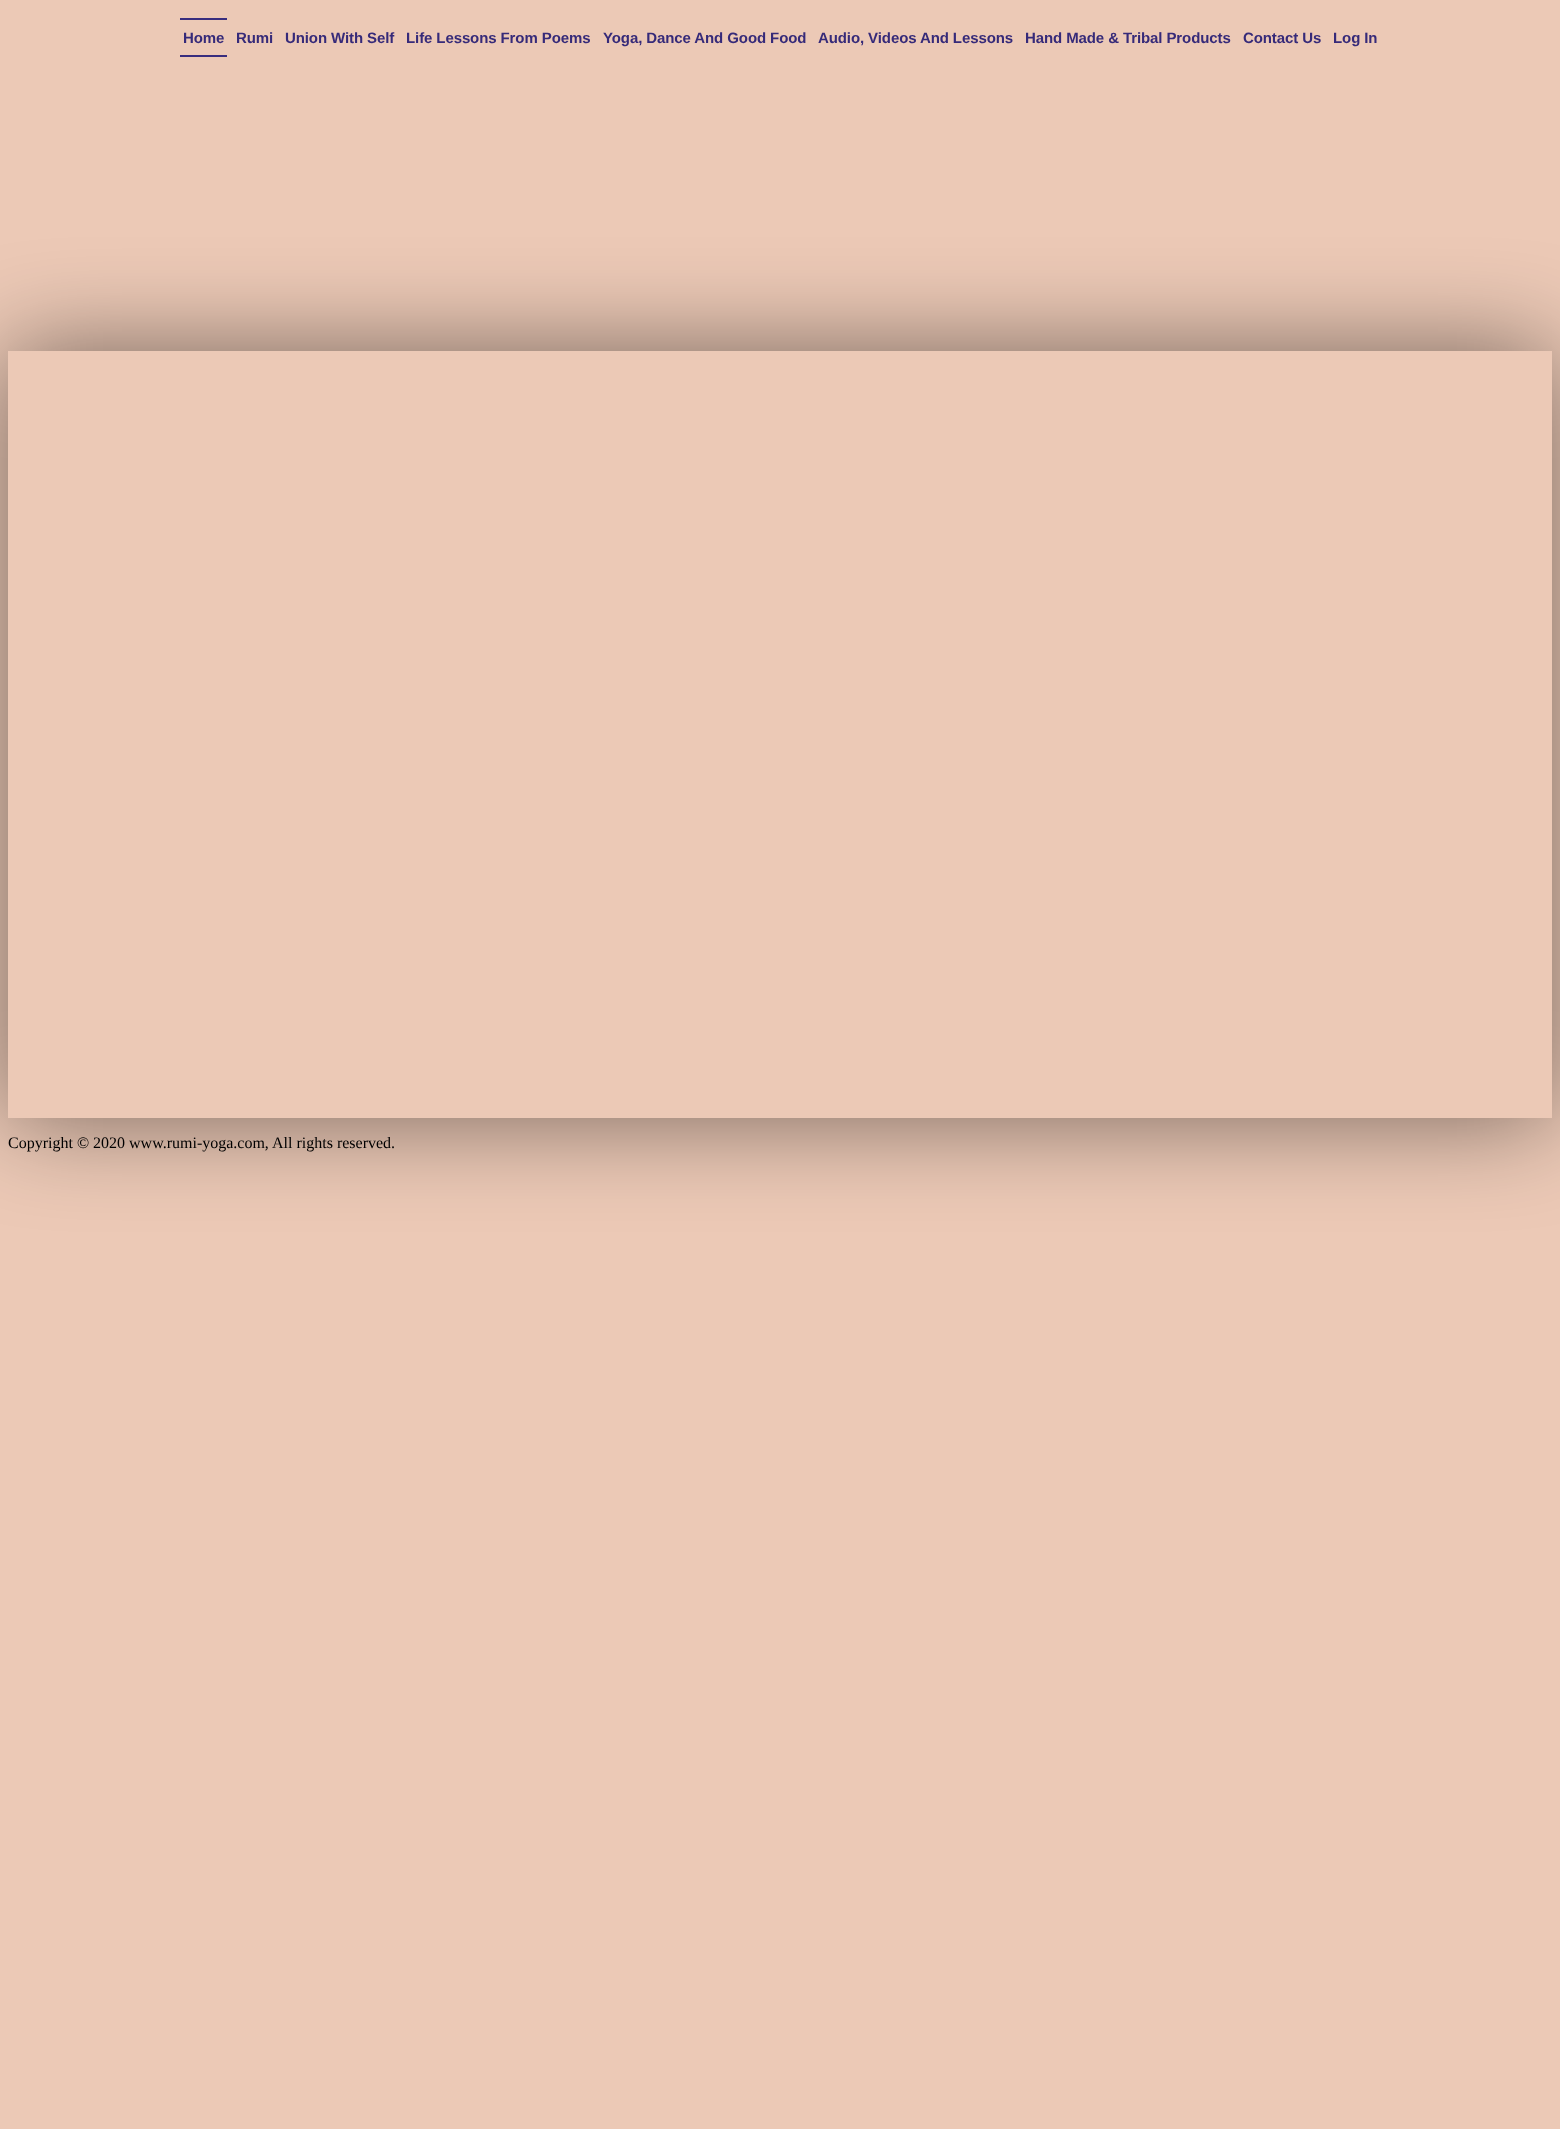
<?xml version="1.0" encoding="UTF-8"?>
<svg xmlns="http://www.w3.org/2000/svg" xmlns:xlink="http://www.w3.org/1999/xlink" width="1560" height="2129">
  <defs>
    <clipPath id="clip1"><path d="M 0 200 h 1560 v 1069 h -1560 z m 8 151 h 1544 v 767 h -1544 z" clip-rule="evenodd" /></clipPath>
  </defs>
  <rect width="100%" height="100%" fill="#ecc9b6" />
  <rect x="180" y="18" width="47" height="2" fill="#392d7e" />
  <rect x="180" y="55" width="47" height="2" fill="#392d7e" />
  <g clip-path="url(#clip1)">
    <rect x="8" y="351" width="1544" height="767" fill="#000000" fill-opacity="0.5" filter="blur(50px)" />
  </g>
  <text x="183" y="43" style="font-family: Liberation Sans; font-size: 15px; font-weight: bold; letter-spacing: -0.1px; fill: #362a79">Home</text>
  <text x="236" y="43" style="font-family: Liberation Sans; font-size: 15px; font-weight: bold; letter-spacing: -0.1px; fill: #362a79">Rumi</text>
  <text x="285" y="43" style="font-family: Liberation Sans; font-size: 15px; font-weight: bold; letter-spacing: -0.1px; fill: #362a79">Union With Self</text>
  <text x="406" y="43" style="font-family: Liberation Sans; font-size: 15px; font-weight: bold; letter-spacing: -0.1px; fill: #362a79">Life Lessons From Poems</text>
  <text x="603" y="43" style="font-family: Liberation Sans; font-size: 15px; font-weight: bold; letter-spacing: -0.1px; fill: #362a79">Yoga, Dance And Good Food</text>
  <text x="818" y="43" style="font-family: Liberation Sans; font-size: 15px; font-weight: bold; letter-spacing: -0.1px; fill: #362a79">Audio, Videos And Lessons</text>
  <text x="1025" y="43" style="font-family: Liberation Sans; font-size: 15px; font-weight: bold; letter-spacing: -0.1px; fill: #362a79">Hand Made &amp; Tribal Products</text>
  <text x="1243" y="43" style="font-family: Liberation Sans; font-size: 15px; font-weight: bold; letter-spacing: -0.1px; fill: #362a79">Contact Us</text>
  <text x="1333" y="43" style="font-family: Liberation Sans; font-size: 15px; font-weight: bold; letter-spacing: -0.1px; fill: #362a79">Log In</text>
  <text x="8" y="1148" style="font-family: Liberation Serif; font-size: 16px; fill: #000000">Copyright © 2020 www.rumi-yoga.com, All rights reserved.</text>
</svg>
